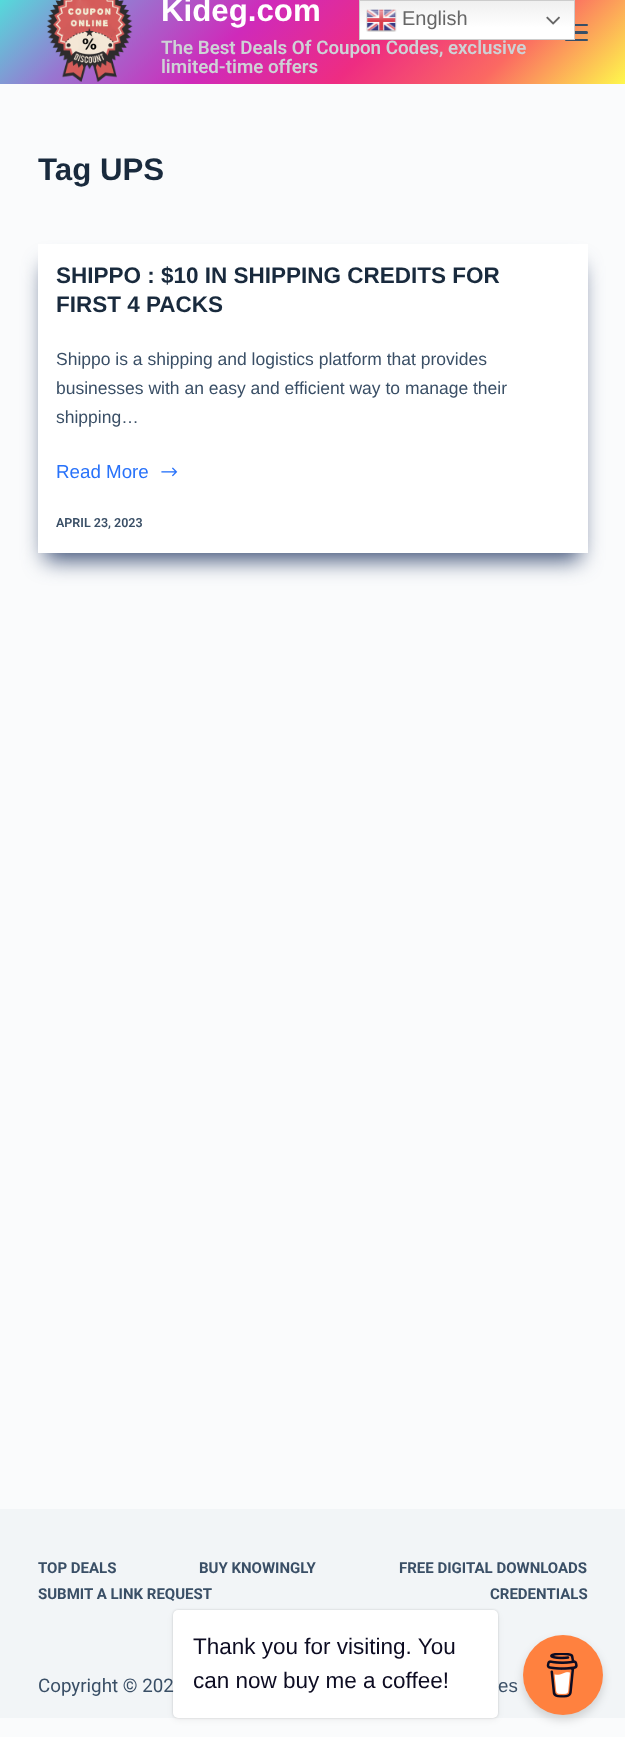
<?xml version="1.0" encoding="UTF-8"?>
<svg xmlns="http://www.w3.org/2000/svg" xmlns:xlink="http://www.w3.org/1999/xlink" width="625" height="1737">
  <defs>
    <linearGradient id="g1" gradientUnits="userSpaceOnUse" x1="130" y1="-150" x2="495" y2="214"><stop offset="0" stop-color="#4aeadc" /><stop offset="0.2" stop-color="#9778d1" /><stop offset="0.4" stop-color="#cf2aba" /><stop offset="0.6" stop-color="#ee2c82" /><stop offset="0.8" stop-color="#fb6962" /><stop offset="1" stop-color="#fef84c" /></linearGradient>
    <linearGradient id="g2" gradientUnits="userSpaceOnUse" x1="467" y1="0" x2="467" y2="40"><stop offset="0" stop-color="#efefef" /><stop offset="0.7" stop-color="#ffffff" /></linearGradient>
  </defs>
  <rect width="100%" height="100%" fill="#fafbfc" />
  <rect width="625" height="84" fill="url(#g1)" />
  <image x="46" y="0" width="87" height="82" xlink:href="image1.png" />
  <rect x="565" y="24" width="23" height="2" rx="1" fill="#3a4f66" />
  <rect x="565" y="31" width="23" height="3" rx="1.5" fill="#3a4f66" />
  <rect x="565" y="39" width="23" height="2" rx="1" fill="#3a4f66" />
  <rect x="45" y="266" width="535" height="294" fill="#213763" fill-opacity="0.87" filter="blur(11px)" />
  <rect x="38" y="244" width="550" height="309" fill="#ffffff" />
  <image x="161" y="467" width="17" height="10" xlink:href="image2.png" />
  <rect y="1509" width="625" height="209" fill="#f2f5f7" />
  <rect x="360" y="1" width="214" height="38" fill="url(#g2)" />
  <rect x="173" y="1610" width="325" height="108" rx="5" fill="#000000" fill-opacity="0.15" filter="blur(1px)" />
  <rect x="173" y="1613" width="325" height="107" rx="5" fill="#000000" fill-opacity="0.05" filter="blur(3px)" />
  <rect x="173" y="1610" width="325" height="108" rx="5" fill="#ffffff" />
  <rect x="523" y="1640" width="80" height="80" rx="40" fill="#000000" fill-opacity="0.15" filter="blur(5px)" />
  <circle cx="563" cy="1675" r="40" fill="#ff813f" />
  <image x="546" y="1653" width="32" height="45" xlink:href="image5.png" />
  <text x="161" y="21" style="font-family: Liberation Sans; font-size: 31.25px; font-weight: bold; fill: #ffffff">Kideg.com</text>
  <text x="161" y="54" style="font-family: Roboto; font-size: 18.75px; font-weight: 600; fill: #ced2d6">The Best Deals Of Coupon Codes, exclusive</text>
  <text x="161" y="73" style="font-family: Roboto; font-size: 18.75px; font-weight: 600; fill: #ced2d6">limited-time offers</text>
  <text x="38" y="180" style="font-family: Liberation Sans; font-size: 31.25px; font-weight: bold; fill: #192a3d">Tag UPS</text>
  <text x="56" y="283" style="font-family: Liberation Sans; font-size: 22.5px; font-weight: bold; fill: #192a3d">SHIPPO : $10 IN SHIPPING CREDITS FOR</text>
  <text x="56" y="312" style="font-family: Liberation Sans; font-size: 22.5px; font-weight: bold; fill: #192a3d">FIRST 4 PACKS</text>
  <text x="56" y="365" style="font-family: Liberation Sans; font-size: 17.5px; fill: #3a4f66">Shippo is a shipping and logistics platform that provides</text>
  <text x="56" y="394" style="font-family: Liberation Sans; font-size: 17.5px; fill: #3a4f66">businesses with an easy and efficient way to manage their</text>
  <text x="56" y="423" style="font-family: Liberation Sans; font-size: 17.5px; fill: #3a4f66">shipping…</text>
  <text x="56" y="478" style="font-family: Liberation Sans; font-size: 18.75px; fill: #2872fa">Read More</text>
  <text x="56" y="527" style="font-family: Roboto; font-size: 12.5px; font-weight: 600; fill: #3a4f66">APRIL 23, 2023</text>
  <text x="38" y="1573" style="font-family: Roboto; font-size: 15px; font-weight: bold; fill: #3a4f66">TOP DEALS</text>
  <text x="199" y="1573" style="font-family: Roboto; font-size: 15px; font-weight: bold; fill: #3a4f66">BUY KNOWINGLY</text>
  <text x="399" y="1573" style="font-family: Roboto; font-size: 15px; font-weight: bold; fill: #3a4f66">FREE DIGITAL DOWNLOADS</text>
  <text x="38" y="1599" style="font-family: Roboto; font-size: 15px; font-weight: bold; fill: #3a4f66">SUBMIT A LINK REQUEST</text>
  <text x="490" y="1599" style="font-family: Roboto; font-size: 15px; font-weight: bold; fill: #3a4f66">CREDENTIALS</text>
  <text x="38" y="1692" style="font-family: Roboto; font-size: 18.75px; fill: #3a4f66">Copyright © 202</text>
  <text x="498" y="1692" style="font-family: Liberation Sans; font-size: 18.75px; fill: #3a4f66">es</text>
  <rect x="359.5" y="0.5" width="215" height="39" fill="none" stroke="#cccccc" />
  <image x="366" y="9" width="31" height="23" xlink:href="image3.png" />
  <text x="402" y="25" style="font-family: Liberation Sans; font-size: 20px; fill: #666666">English</text>
  <image x="546" y="16" width="14" height="9" xlink:href="image4.png" />
  <text x="193" y="1654" style="font-family: Liberation Sans; font-size: 22.5px; fill: #0d0c22">Thank you for visiting. You</text>
  <text x="193" y="1688" style="font-family: Liberation Sans; font-size: 22.5px; fill: #0d0c22">can now buy me a coffee!</text>
</svg>
